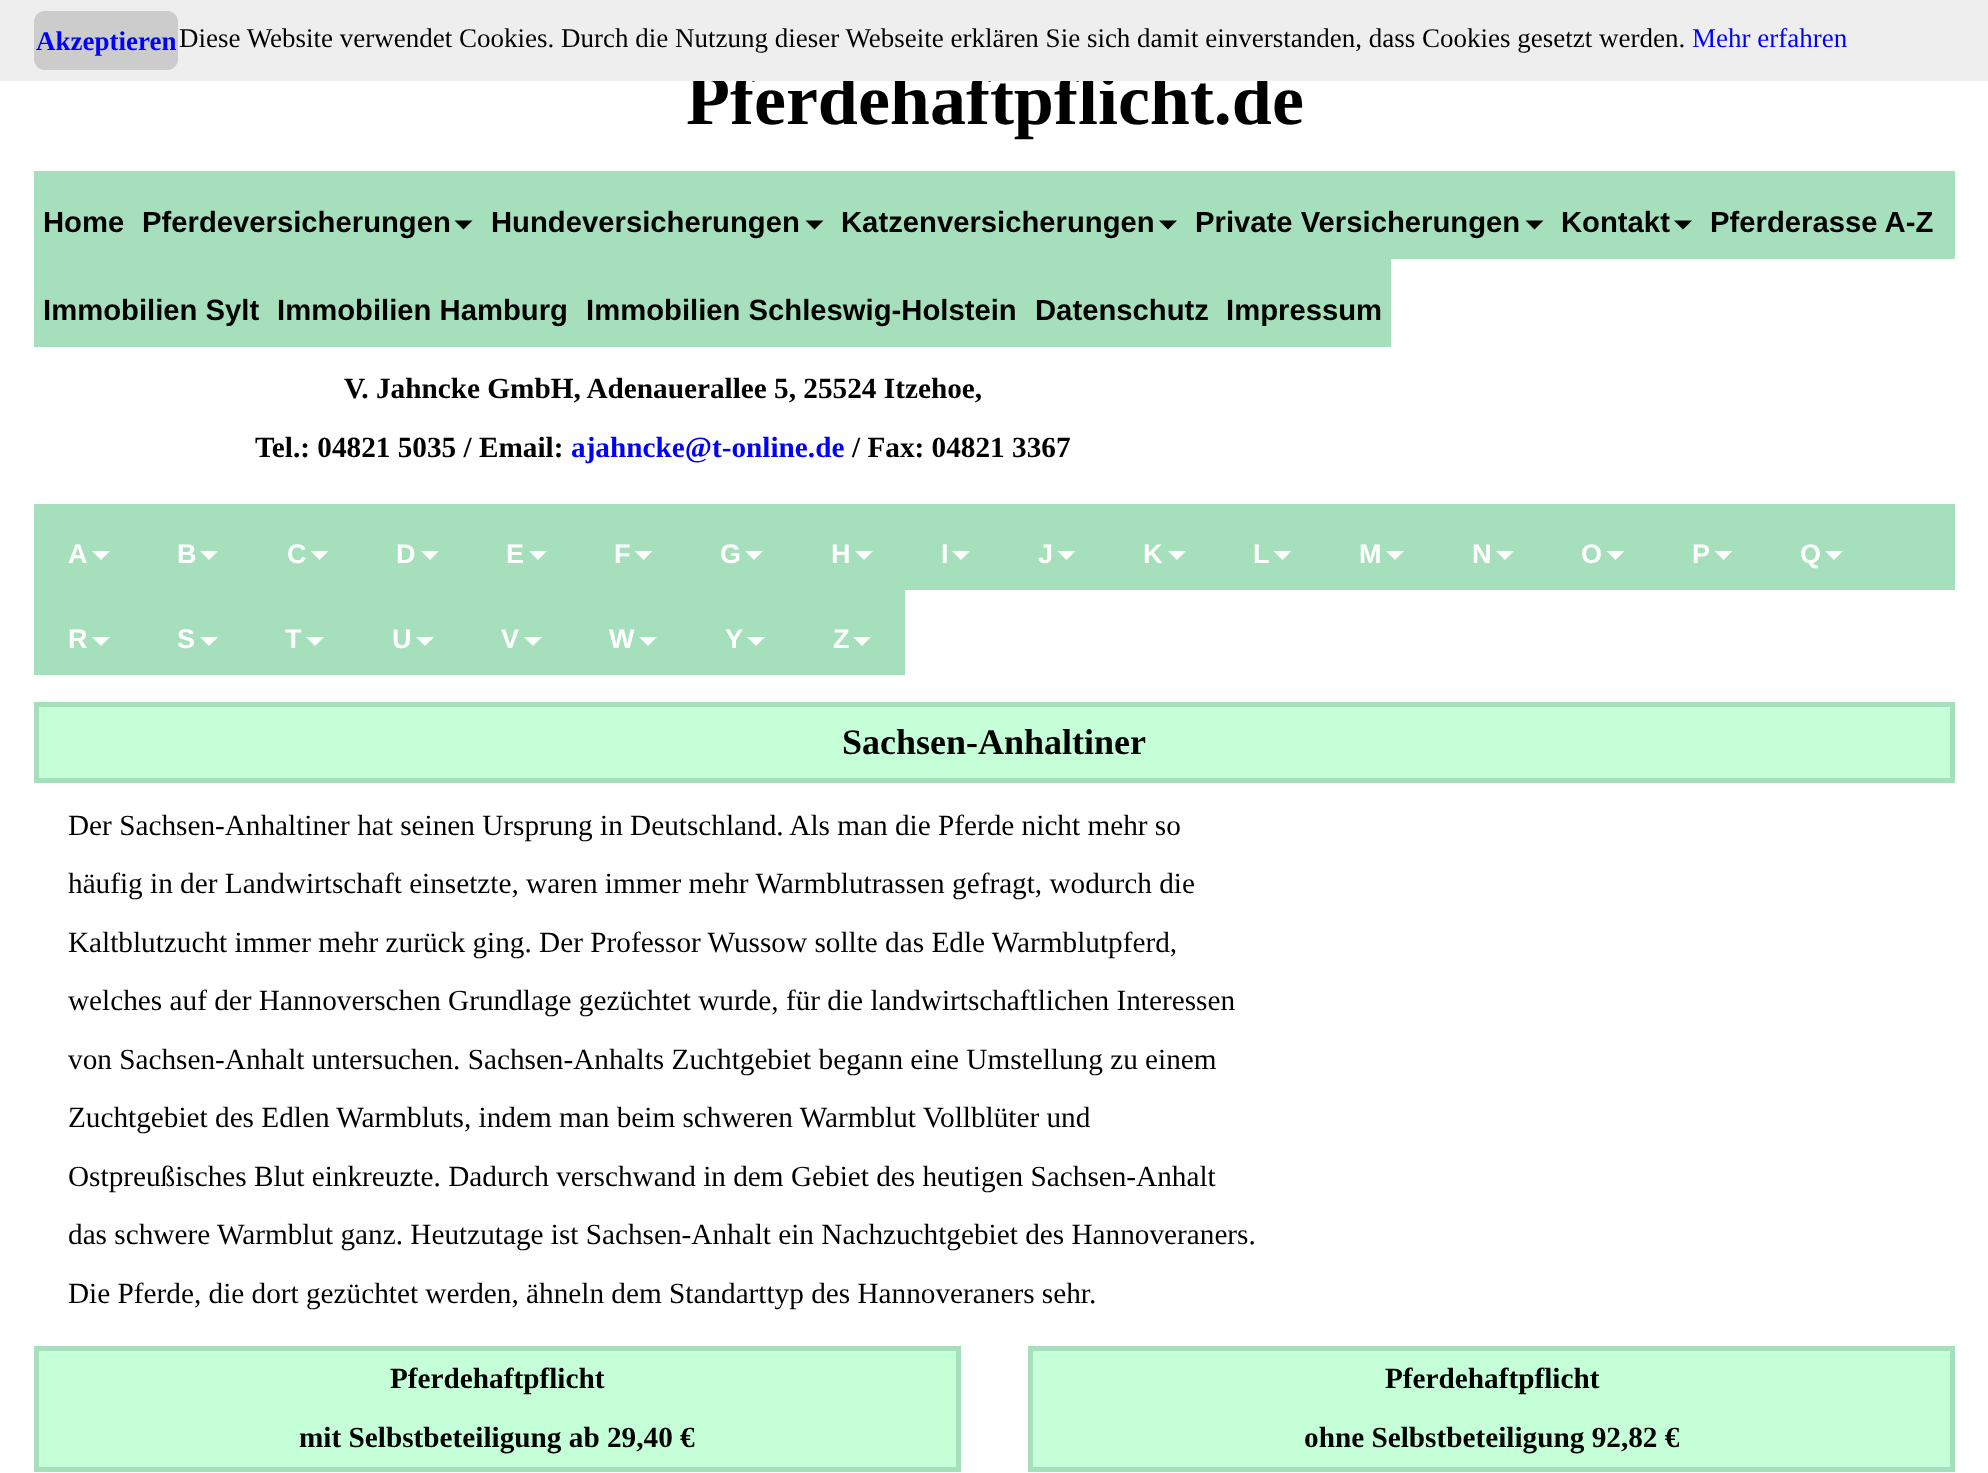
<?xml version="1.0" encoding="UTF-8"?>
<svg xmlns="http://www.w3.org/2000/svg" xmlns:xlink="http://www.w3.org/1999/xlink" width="1988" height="1473">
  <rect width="100%" height="100%" fill="#ffffff" />
  <rect x="34" y="171" width="1921" height="88" fill="#a6dfbc" />
  <path d="M 454.5 220.5 h 18 l -9 9 z" fill="#000000" />
  <path d="M 805.5 220.5 h 18 l -9 9 z" fill="#000000" />
  <path d="M 1159 220.5 h 18 l -9 9 z" fill="#000000" />
  <path d="M 1525.5 220.5 h 18 l -9 9 z" fill="#000000" />
  <path d="M 1674 220.5 h 18 l -9 9 z" fill="#000000" />
  <rect x="34" y="259" width="1357" height="88" fill="#a6dfbc" />
  <rect x="34" y="504" width="1921" height="86" fill="#a6dfbc" />
  <path d="M 92 551 h 18 l -9 9 z" fill="#ffffff" />
  <path d="M 200 551 h 18 l -9 9 z" fill="#ffffff" />
  <path d="M 310.5 551 h 18 l -9 9 z" fill="#ffffff" />
  <path d="M 421 551 h 18 l -9 9 z" fill="#ffffff" />
  <path d="M 529 551 h 18 l -9 9 z" fill="#ffffff" />
  <path d="M 634.5 551 h 18 l -9 9 z" fill="#ffffff" />
  <path d="M 745 551 h 18 l -9 9 z" fill="#ffffff" />
  <path d="M 855 551 h 18 l -9 9 z" fill="#ffffff" />
  <path d="M 952 551 h 18 l -9 9 z" fill="#ffffff" />
  <path d="M 1057.5 551 h 18 l -9 9 z" fill="#ffffff" />
  <path d="M 1168 551 h 18 l -9 9 z" fill="#ffffff" />
  <path d="M 1273.5 551 h 18 l -9 9 z" fill="#ffffff" />
  <path d="M 1386 551 h 18 l -9 9 z" fill="#ffffff" />
  <path d="M 1496 551 h 18 l -9 9 z" fill="#ffffff" />
  <path d="M 1606.5 551 h 18 l -9 9 z" fill="#ffffff" />
  <path d="M 1714.5 551 h 18 l -9 9 z" fill="#ffffff" />
  <path d="M 1825 551 h 18 l -9 9 z" fill="#ffffff" />
  <rect x="34" y="590" width="871" height="85" fill="#a6dfbc" />
  <path d="M 92 637 h 18 l -9 9 z" fill="#ffffff" />
  <path d="M 200 637 h 18 l -9 9 z" fill="#ffffff" />
  <path d="M 306 637 h 18 l -9 9 z" fill="#ffffff" />
  <path d="M 416 637 h 18 l -9 9 z" fill="#ffffff" />
  <path d="M 524 637 h 18 l -9 9 z" fill="#ffffff" />
  <path d="M 639 637 h 18 l -9 9 z" fill="#ffffff" />
  <path d="M 747 637 h 18 l -9 9 z" fill="#ffffff" />
  <path d="M 853 637 h 18 l -9 9 z" fill="#ffffff" />
  <rect x="36.5" y="704.5" width="1916" height="76" fill="#c5ffd8" stroke="#a6dfbb" stroke-width="5" />
  <rect x="36.5" y="1348.5" width="922" height="121" fill="#c5ffd8" stroke="#a6dfbb" stroke-width="5" />
  <rect x="1030.5" y="1348.5" width="922" height="121" fill="#c5ffd8" stroke="#a6dfbb" stroke-width="5" />
  <text x="686" y="124" style="font-family: Liberation Serif; font-size: 72px; font-weight: bold; fill: #000000">Pferdehaftpflicht.de</text>
  <rect width="1988" height="81" fill="#eeeeee" />
  <text x="1692" y="47" style="font-family: Liberation Serif; font-size: 27px; fill: #0000ff">Mehr erfahren</text>
  <text x="179" y="47" style="font-family: Liberation Serif; font-size: 27px; fill: #000000">Diese Website verwendet Cookies. Durch die Nutzung dieser Webseite erklären Sie sich damit einverstanden, dass Cookies gesetzt werden.</text>
  <rect x="34" y="11" width="144" height="59" rx="11" fill="#cccccc" />
  <text x="36" y="50" style="font-family: Liberation Serif; font-size: 27px; font-weight: bold; fill: #0000ff">Akzeptieren</text>
  <text x="43" y="232" style="font-family: Liberation Sans; font-size: 29.25px; font-weight: bold; fill: #000000">Home</text>
  <text x="142" y="232" style="font-family: Liberation Sans; font-size: 29.25px; font-weight: bold; fill: #000000">Pferdeversicherungen</text>
  <text x="491" y="232" style="font-family: Liberation Sans; font-size: 29.25px; font-weight: bold; fill: #000000">Hundeversicherungen</text>
  <text x="841" y="232" style="font-family: Liberation Sans; font-size: 29.25px; font-weight: bold; fill: #000000">Katzenversicherungen</text>
  <text x="1195" y="232" style="font-family: Liberation Sans; font-size: 29.25px; font-weight: bold; fill: #000000">Private Versicherungen</text>
  <text x="1561" y="232" style="font-family: Liberation Sans; font-size: 29.25px; font-weight: bold; fill: #000000">Kontakt</text>
  <text x="1710" y="232" style="font-family: Liberation Sans; font-size: 29.25px; font-weight: bold; fill: #000000">Pferderasse A-Z</text>
  <text x="43" y="320" style="font-family: Liberation Sans; font-size: 29.25px; font-weight: bold; fill: #000000">Immobilien Sylt</text>
  <text x="277" y="320" style="font-family: Liberation Sans; font-size: 29.25px; font-weight: bold; fill: #000000">Immobilien Hamburg</text>
  <text x="586" y="320" style="font-family: Liberation Sans; font-size: 29.25px; font-weight: bold; fill: #000000">Immobilien Schleswig-Holstein</text>
  <text x="1035" y="320" style="font-family: Liberation Sans; font-size: 29.25px; font-weight: bold; fill: #000000">Datenschutz</text>
  <text x="1226" y="320" style="font-family: Liberation Sans; font-size: 29.25px; font-weight: bold; fill: #000000">Impressum</text>
  <text x="344" y="398" style="font-family: Liberation Serif; font-size: 29.25px; font-weight: bold; fill: #000000">V. Jahncke GmbH, Adenauerallee 5, 25524 Itzehoe,</text>
  <text x="255" y="457" style="font-family: Liberation Serif; font-size: 29.25px; font-weight: bold; fill: #000000">Tel.: 04821 5035 / Email:</text>
  <text x="571" y="457" style="font-family: Liberation Serif; font-size: 29.25px; font-weight: bold; fill: #0000ff">ajahncke@t-online.de</text>
  <text x="852" y="457" style="font-family: Liberation Serif; font-size: 29.25px; font-weight: bold; fill: #000000">/ Fax: 04821 3367</text>
  <text x="68" y="563" style="font-family: Liberation Sans; font-size: 27px; font-weight: bold; fill: #ffffff">A</text>
  <text x="177" y="563" style="font-family: Liberation Sans; font-size: 27px; font-weight: bold; fill: #ffffff">B</text>
  <text x="287" y="563" style="font-family: Liberation Sans; font-size: 27px; font-weight: bold; fill: #ffffff">C</text>
  <text x="396" y="563" style="font-family: Liberation Sans; font-size: 27px; font-weight: bold; fill: #ffffff">D</text>
  <text x="506" y="563" style="font-family: Liberation Sans; font-size: 27px; font-weight: bold; fill: #ffffff">E</text>
  <text x="614" y="563" style="font-family: Liberation Sans; font-size: 27px; font-weight: bold; fill: #ffffff">F</text>
  <text x="720" y="563" style="font-family: Liberation Sans; font-size: 27px; font-weight: bold; fill: #ffffff">G</text>
  <text x="831" y="563" style="font-family: Liberation Sans; font-size: 27px; font-weight: bold; fill: #ffffff">H</text>
  <text x="941" y="563" style="font-family: Liberation Sans; font-size: 27px; font-weight: bold; fill: #ffffff">I</text>
  <text x="1038" y="563" style="font-family: Liberation Sans; font-size: 27px; font-weight: bold; fill: #ffffff">J</text>
  <text x="1143" y="563" style="font-family: Liberation Sans; font-size: 27px; font-weight: bold; fill: #ffffff">K</text>
  <text x="1253" y="563" style="font-family: Liberation Sans; font-size: 27px; font-weight: bold; fill: #ffffff">L</text>
  <text x="1359" y="563" style="font-family: Liberation Sans; font-size: 27px; font-weight: bold; fill: #ffffff">M</text>
  <text x="1472" y="563" style="font-family: Liberation Sans; font-size: 27px; font-weight: bold; fill: #ffffff">N</text>
  <text x="1581" y="563" style="font-family: Liberation Sans; font-size: 27px; font-weight: bold; fill: #ffffff">O</text>
  <text x="1692" y="563" style="font-family: Liberation Sans; font-size: 27px; font-weight: bold; fill: #ffffff">P</text>
  <text x="1800" y="563" style="font-family: Liberation Sans; font-size: 27px; font-weight: bold; fill: #ffffff">Q</text>
  <text x="68" y="648" style="font-family: Liberation Sans; font-size: 27px; font-weight: bold; fill: #ffffff">R</text>
  <text x="177" y="648" style="font-family: Liberation Sans; font-size: 27px; font-weight: bold; fill: #ffffff">S</text>
  <text x="285" y="648" style="font-family: Liberation Sans; font-size: 27px; font-weight: bold; fill: #ffffff">T</text>
  <text x="392" y="648" style="font-family: Liberation Sans; font-size: 27px; font-weight: bold; fill: #ffffff">U</text>
  <text x="501" y="648" style="font-family: Liberation Sans; font-size: 27px; font-weight: bold; fill: #ffffff">V</text>
  <text x="609" y="648" style="font-family: Liberation Sans; font-size: 27px; font-weight: bold; fill: #ffffff">W</text>
  <text x="725" y="648" style="font-family: Liberation Sans; font-size: 27px; font-weight: bold; fill: #ffffff">Y</text>
  <text x="833" y="648" style="font-family: Liberation Sans; font-size: 27px; font-weight: bold; fill: #ffffff">Z</text>
  <text x="842" y="754" style="font-family: Liberation Serif; font-size: 36px; font-weight: bold; fill: #000000">Sachsen-Anhaltiner</text>
  <text x="68" y="835" style="font-family: Liberation Serif; font-size: 29.25px; fill: #000000">Der Sachsen-Anhaltiner hat seinen Ursprung in Deutschland. Als man die Pferde nicht mehr so</text>
  <text x="68" y="893" style="font-family: Liberation Serif; font-size: 29.25px; fill: #000000">häufig in der Landwirtschaft einsetzte, waren immer mehr Warmblutrassen gefragt, wodurch die</text>
  <text x="68" y="952" style="font-family: Liberation Serif; font-size: 29.25px; fill: #000000">Kaltblutzucht immer mehr zurück ging. Der Professor Wussow sollte das Edle Warmblutpferd,</text>
  <text x="68" y="1010" style="font-family: Liberation Serif; font-size: 29.25px; fill: #000000">welches auf der Hannoverschen Grundlage gezüchtet wurde, für die landwirtschaftlichen Interessen</text>
  <text x="68" y="1069" style="font-family: Liberation Serif; font-size: 29.25px; fill: #000000">von Sachsen-Anhalt untersuchen. Sachsen-Anhalts Zuchtgebiet begann eine Umstellung zu einem</text>
  <text x="68" y="1127" style="font-family: Liberation Serif; font-size: 29.25px; fill: #000000">Zuchtgebiet des Edlen Warmbluts, indem man beim schweren Warmblut Vollblüter und</text>
  <text x="68" y="1186" style="font-family: Liberation Serif; font-size: 29.25px; fill: #000000">Ostpreußisches Blut einkreuzte. Dadurch verschwand in dem Gebiet des heutigen Sachsen-Anhalt</text>
  <text x="68" y="1244" style="font-family: Liberation Serif; font-size: 29.25px; fill: #000000">das schwere Warmblut ganz. Heutzutage ist Sachsen-Anhalt ein Nachzuchtgebiet des Hannoveraners.</text>
  <text x="68" y="1303" style="font-family: Liberation Serif; font-size: 29.25px; fill: #000000">Die Pferde, die dort gezüchtet werden, ähneln dem Standarttyp des Hannoveraners sehr.</text>
  <text x="390" y="1388" style="font-family: Liberation Serif; font-size: 29.25px; font-weight: bold; fill: #000000">Pferdehaftpflicht</text>
  <text x="299" y="1447" style="font-family: Liberation Serif; font-size: 29.25px; font-weight: bold; fill: #000000">mit Selbstbeteiligung ab 29,40 €</text>
  <text x="1385" y="1388" style="font-family: Liberation Serif; font-size: 29.25px; font-weight: bold; fill: #000000">Pferdehaftpflicht</text>
  <text x="1304" y="1447" style="font-family: Liberation Serif; font-size: 29.25px; font-weight: bold; fill: #000000">ohne Selbstbeteiligung 92,82 €</text>
</svg>
